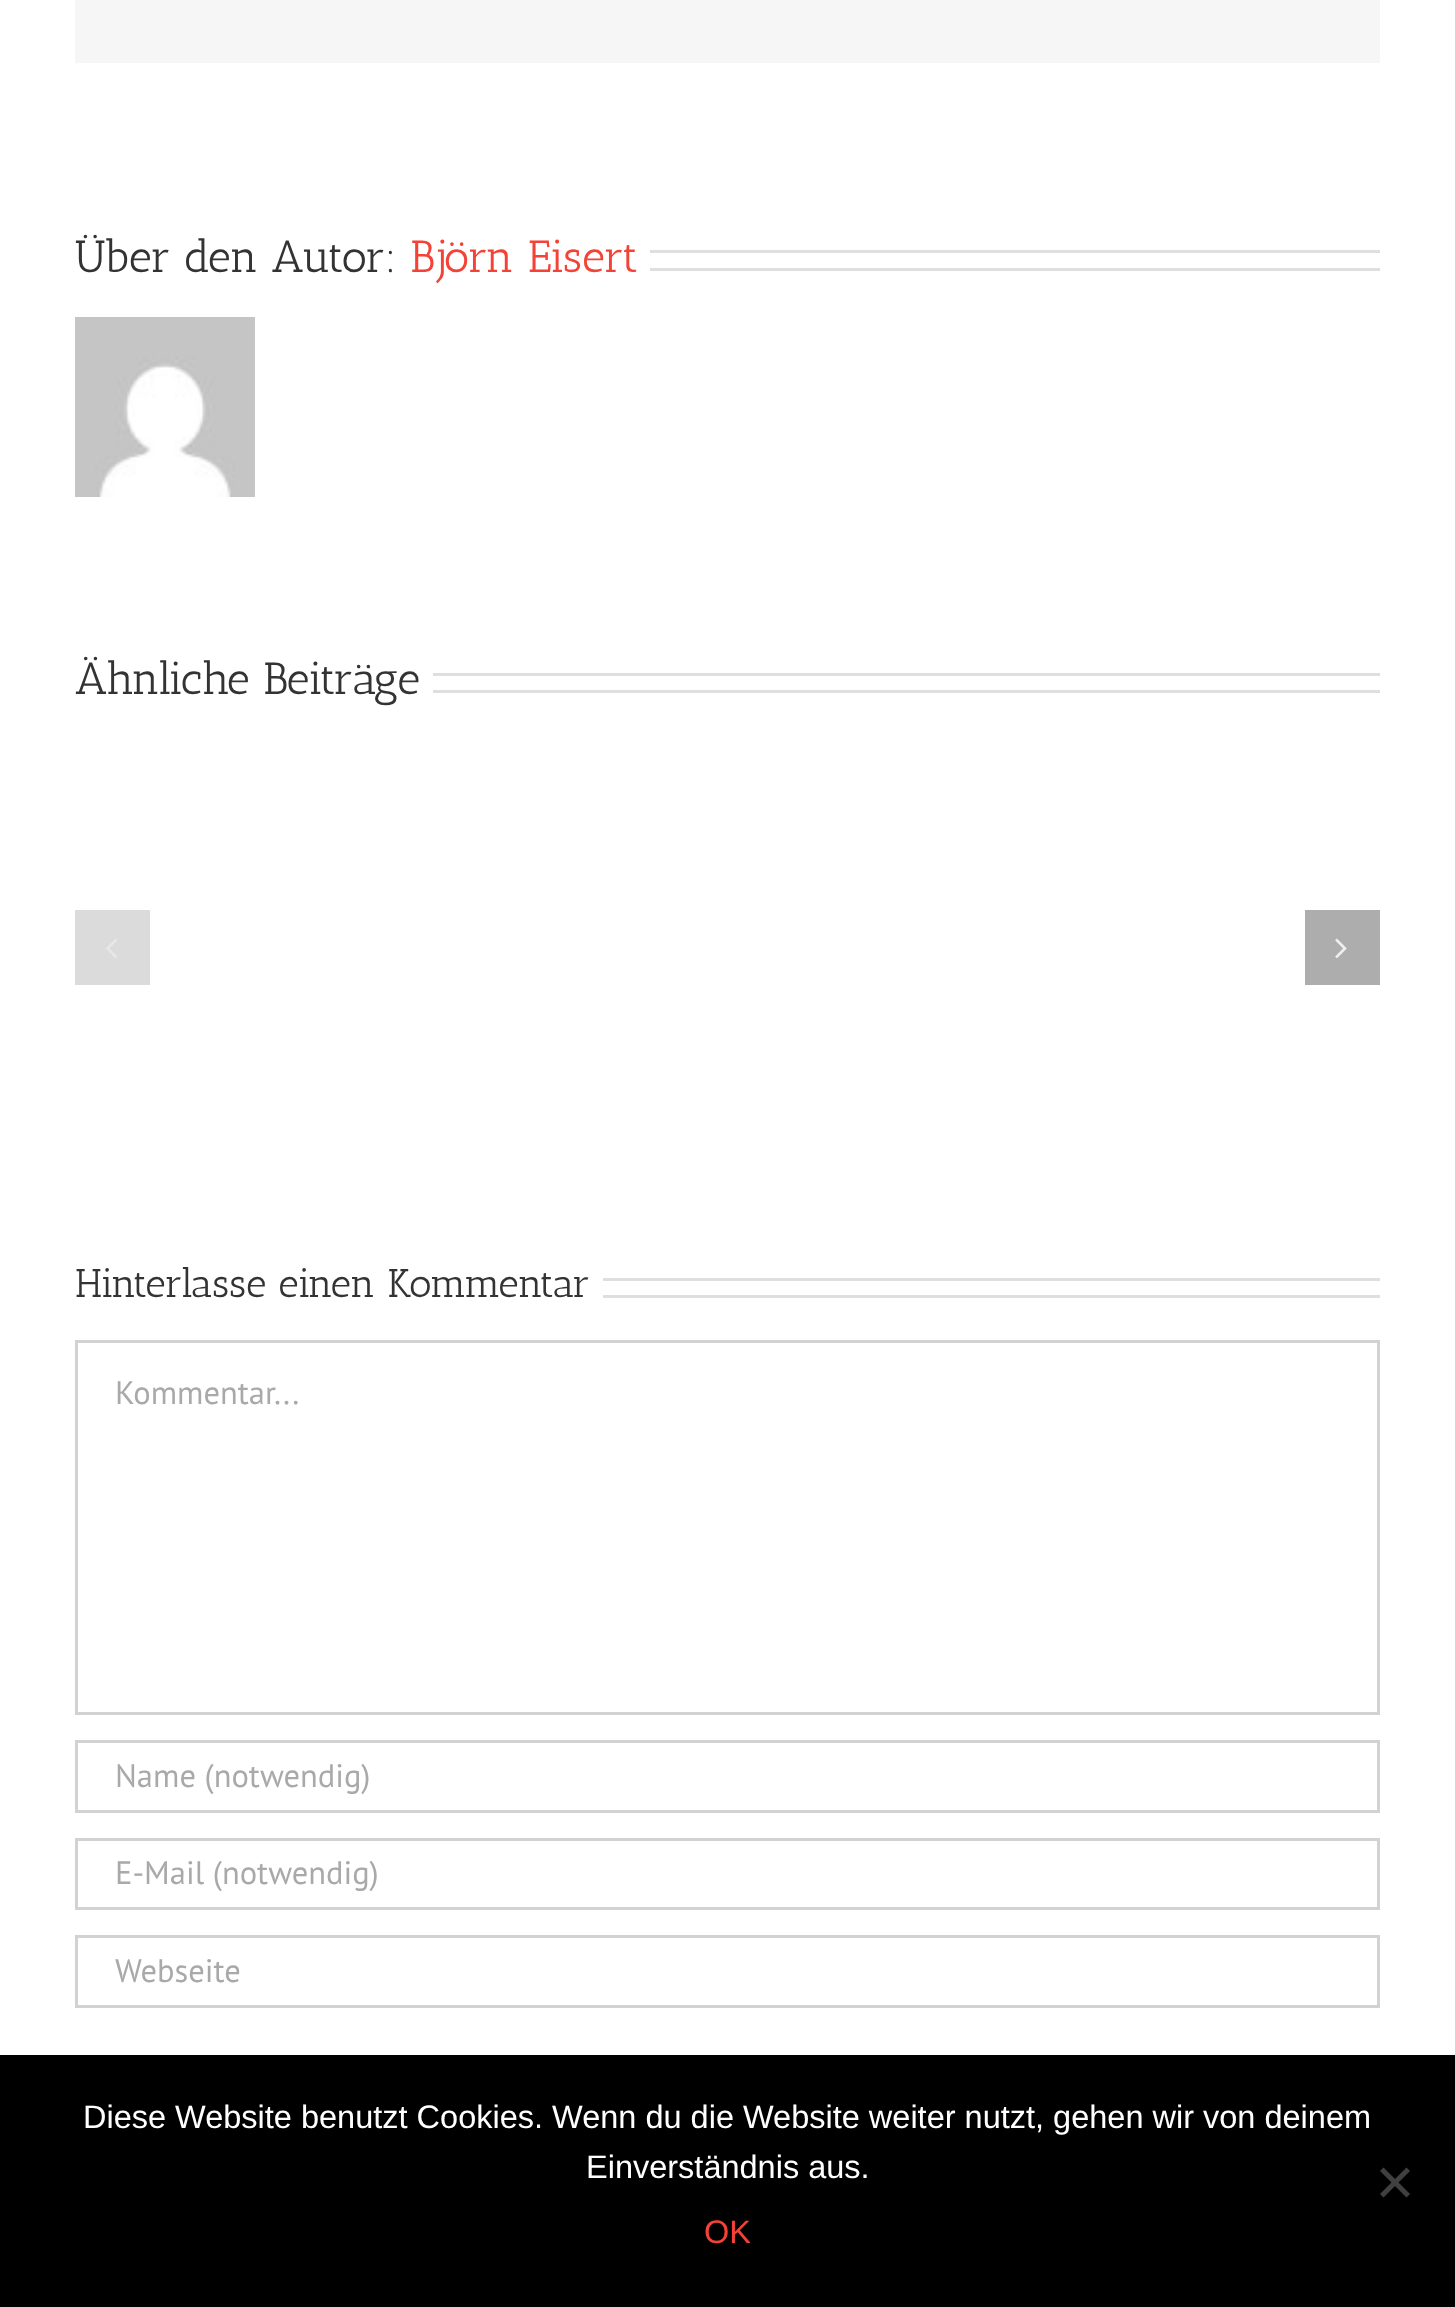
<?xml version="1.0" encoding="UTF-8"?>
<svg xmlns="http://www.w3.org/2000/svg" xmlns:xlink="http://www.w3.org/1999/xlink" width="1455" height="2307">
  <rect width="100%" height="100%" fill="#ffffff" />
  <rect x="75" width="1305" height="63" fill="#f6f6f6" />
  <rect x="650" y="250" width="730" height="3" fill="#e0dede" />
  <rect x="650" y="268" width="730" height="3" fill="#e0dede" />
  <image x="75" y="317" width="180" height="180" xlink:href="image1.png" />
  <rect x="433" y="673" width="947" height="3" fill="#e0dede" />
  <rect x="433" y="690" width="947" height="3" fill="#e0dede" />
  <rect x="75" y="910" width="75" height="75" fill="#dbdbdb" />
  <image x="106" y="939" width="11" height="19" xlink:href="image2.png" />
  <rect x="1305" y="910" width="75" height="75" fill="#adadad" />
  <image x="1335" y="938" width="12" height="20" xlink:href="image3.png" />
  <rect x="603" y="1278" width="777" height="3" fill="#e0dede" />
  <rect x="603" y="1295" width="777" height="3" fill="#e0dede" />
  <rect x="76.5" y="1341.5" width="1302" height="372" fill="none" stroke="#d2d2d2" stroke-width="3" />
  <rect x="76.5" y="1741.5" width="1302" height="70" fill="none" stroke="#d2d2d2" stroke-width="3" />
  <rect x="76.5" y="1839.5" width="1302" height="69" fill="none" stroke="#d2d2d2" stroke-width="3" />
  <rect x="76.5" y="1936.5" width="1302" height="70" fill="none" stroke="#d2d2d2" stroke-width="3" />
  <rect y="2055" width="1455" height="252" fill="#000000" />
  <path d="M 1406.5 2167.5 l 3.5 3.5 l -26.5 26.5 l -3.5 -3.5 z" fill="#404040" />
  <path d="M 1380 2171 l 3.5 -3.5 l 26.5 26.5 l -3.5 3.5 z" fill="#404040" />
  <text x="75" y="272" style="font-family: Antic Slab; font-size: 45px; fill: #333333">Über den Autor:</text>
  <text x="410" y="272" style="font-family: Antic Slab; font-size: 45px; fill: #f44336">Björn Eisert</text>
  <text x="75" y="694" style="font-family: Antic Slab; font-size: 45px; fill: #333333">Ähnliche Beiträge</text>
  <text x="75" y="1297" style="font-family: Antic Slab; font-size: 40px; fill: #333333">Hinterlasse einen Kommentar</text>
  <text x="115" y="1404" style="font-family: PT Sans; font-size: 32.5px; fill: #aaa9a9">Kommentar...</text>
  <text x="115" y="1787" style="font-family: PT Sans; font-size: 32.5px; fill: #aaa9a9">Name (notwendig)</text>
  <text x="115" y="1884" style="font-family: PT Sans; font-size: 32.5px; fill: #aaa9a9">E-Mail (notwendig)</text>
  <text x="115" y="1982" style="font-family: PT Sans; font-size: 32.5px; fill: #aaa9a9">Webseite</text>
  <text x="83" y="2128" style="font-family: Liberation Sans; font-size: 32.5px; fill: #ffffff">Diese Website benutzt Cookies. Wenn du die Website weiter nutzt, gehen wir von deinem</text>
  <text x="586" y="2178" style="font-family: Liberation Sans; font-size: 32.5px; fill: #ffffff">Einverständnis aus.</text>
  <text x="704" y="2243" style="font-family: Liberation Sans; font-size: 32.5px; fill: #f44336">OK</text>
</svg>
